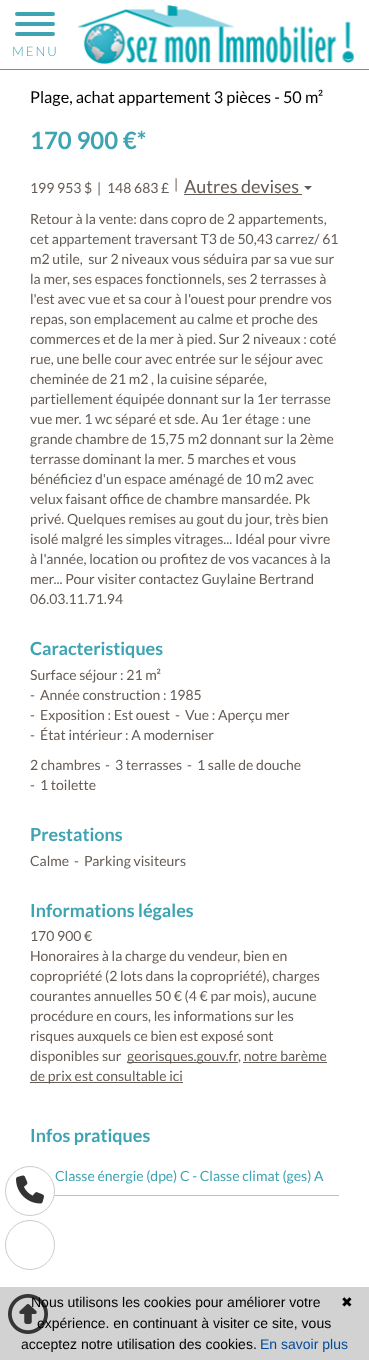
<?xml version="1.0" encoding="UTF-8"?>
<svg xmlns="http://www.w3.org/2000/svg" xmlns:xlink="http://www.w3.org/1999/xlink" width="369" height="1360">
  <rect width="100%" height="100%" fill="#ffffff" />
  <rect y="69" width="369" height="1" fill="#3ea3b2" />
  <rect x="15" y="12" width="40" height="4" rx="2" fill="#3ea3b2" />
  <rect x="15" y="22" width="40" height="4" rx="2" fill="#3ea3b2" />
  <rect x="15" y="32" width="40" height="4" rx="2" fill="#3ea3b2" />
  <image x="77" y="5" width="277" height="59" xlink:href="image1.png" />
  <rect x="184" y="194" width="118" height="1" fill="#655c55" />
  <path d="M 304 186 h 8 l -4 4 z" fill="#655c55" />
  <rect x="127" y="1062" width="111" height="1" fill="#655c55" />
  <rect x="243" y="1062" width="84" height="1" fill="#655c55" />
  <rect x="30" y="1082" width="153" height="1" fill="#655c55" />
  <rect x="54" y="1195" width="285" height="1" fill="#c1c1c1" />
  <circle cx="30" cy="1191" r="24.5" fill="#ffffff" stroke="#cccccc" />
  <image x="16" y="1175" width="28" height="29" xlink:href="image2.png" />
  <circle cx="30" cy="1245" r="24.5" fill="none" stroke="#cccccc" />
  <rect y="1287" width="369" height="73" fill="#d2d2d2" />
  <text x="12" y="56" style="font-family: Lato; font-size: 13px; font-weight: 300; letter-spacing: 2px; fill: #3ea3b2">MENU</text>
  <text x="30" y="103" style="font-family: Lato; font-size: 16.25px; fill: #000000">Plage, achat appartement 3 pièces - 50 m²</text>
  <text x="30" y="149" style="font-family: Lato; font-size: 24px; font-weight: bold; fill: #3ea3b2">170 900 €*</text>
  <text x="30" y="193" style="font-family: Lato; font-size: 14px; fill: #655c55">199 953 $</text>
  <text x="97" y="193" style="font-family: Lato; font-size: 14px; fill: #655c55">|</text>
  <text x="107" y="193" style="font-family: Lato; font-size: 14px; fill: #655c55">148 683 £</text>
  <text x="174" y="189" style="font-family: Lato; font-size: 14px; fill: #655c55">|</text>
  <text x="184" y="193" style="font-family: Lato; font-size: 18px; fill: #655c55">Autres devises</text>
  <text x="30" y="224" style="font-family: Lato; font-size: 14px; fill: #655c55">Retour à la vente: dans copro de 2 appartements,</text>
  <text x="30" y="244" style="font-family: Lato; font-size: 14px; fill: #655c55">cet appartement traversant T3 de 50,43 carrez/ 61</text>
  <text x="30" y="264" style="font-family: Lato; font-size: 14px; fill: #655c55" xml:space="preserve">m2 utile,  sur 2 niveaux vous séduira par sa vue sur</text>
  <text x="30" y="284" style="font-family: Lato; font-size: 14px; fill: #655c55">la mer, ses espaces fonctionnels, ses 2 terrasses à</text>
  <text x="30" y="304" style="font-family: Lato; font-size: 14px; fill: #655c55">l'est avec vue et sa cour à l'ouest pour prendre vos</text>
  <text x="30" y="324" style="font-family: Lato; font-size: 14px; fill: #655c55">repas, son emplacement au calme et proche des</text>
  <text x="30" y="344" style="font-family: Lato; font-size: 14px; fill: #655c55">commerces et de la mer à pied. Sur 2 niveaux : coté</text>
  <text x="30" y="364" style="font-family: Lato; font-size: 14px; fill: #655c55">rue, une belle cour avec entrée sur le séjour avec</text>
  <text x="30" y="384" style="font-family: Lato; font-size: 14px; fill: #655c55">cheminée de 21 m2 , la cuisine séparée,</text>
  <text x="30" y="404" style="font-family: Lato; font-size: 14px; fill: #655c55">partiellement équipée donnant sur la 1er terrasse</text>
  <text x="30" y="424" style="font-family: Lato; font-size: 14px; fill: #655c55">vue mer. 1 wc séparé et sde. Au 1er étage : une</text>
  <text x="30" y="444" style="font-family: Lato; font-size: 14px; fill: #655c55">grande chambre de 15,75 m2 donnant sur la 2ème</text>
  <text x="30" y="464" style="font-family: Lato; font-size: 14px; fill: #655c55">terrasse dominant la mer. 5 marches et vous</text>
  <text x="30" y="484" style="font-family: Lato; font-size: 14px; fill: #655c55">bénéficiez d'un espace aménagé de 10 m2 avec</text>
  <text x="30" y="504" style="font-family: Lato; font-size: 14px; fill: #655c55">velux faisant office de chambre mansardée. Pk</text>
  <text x="30" y="524" style="font-family: Lato; font-size: 14px; fill: #655c55">privé. Quelques remises au gout du jour, très bien</text>
  <text x="30" y="544" style="font-family: Lato; font-size: 14px; fill: #655c55">isolé malgré les simples vitrages... Idéal pour vivre</text>
  <text x="30" y="564" style="font-family: Lato; font-size: 14px; fill: #655c55">à l'année, location ou profitez de vos vacances à la</text>
  <text x="30" y="584" style="font-family: Lato; font-size: 14px; fill: #655c55">mer... Pour visiter contactez Guylaine Bertrand</text>
  <text x="30" y="604" style="font-family: Lato; font-size: 14px; fill: #655c55">06.03.11.71.94</text>
  <text x="30" y="655" style="font-family: Lato; font-size: 18px; font-weight: bold; fill: #3ea3b2">Caracteristiques</text>
  <text x="30" y="680" style="font-family: Lato; font-size: 14px; fill: #655c55">Surface séjour : 21 m²</text>
  <text x="30" y="700" style="font-family: Lato; font-size: 14px; fill: #655c55">-</text>
  <text x="40" y="700" style="font-family: Lato; font-size: 14px; fill: #655c55">Année construction : 1985</text>
  <text x="30" y="720" style="font-family: Lato; font-size: 14px; fill: #655c55">-</text>
  <text x="40" y="720" style="font-family: Lato; font-size: 14px; fill: #655c55">Exposition : Est ouest</text>
  <text x="175" y="720" style="font-family: Lato; font-size: 14px; fill: #655c55">-</text>
  <text x="185" y="720" style="font-family: Lato; font-size: 14px; fill: #655c55">Vue : Aperçu mer</text>
  <text x="30" y="740" style="font-family: Lato; font-size: 14px; fill: #655c55">-</text>
  <text x="40" y="740" style="font-family: Lato; font-size: 14px; fill: #655c55">État intérieur : A moderniser</text>
  <text x="30" y="770" style="font-family: Lato; font-size: 14px; fill: #655c55">2 chambres</text>
  <text x="105" y="770" style="font-family: Lato; font-size: 14px; fill: #655c55">-</text>
  <text x="115" y="770" style="font-family: Lato; font-size: 14px; fill: #655c55">3 terrasses</text>
  <text x="187" y="770" style="font-family: Lato; font-size: 14px; fill: #655c55">-</text>
  <text x="197" y="770" style="font-family: Lato; font-size: 14px; fill: #655c55">1 salle de douche</text>
  <text x="30" y="790" style="font-family: Lato; font-size: 14px; fill: #655c55">-</text>
  <text x="40" y="790" style="font-family: Lato; font-size: 14px; fill: #655c55">1 toilette</text>
  <text x="30" y="841" style="font-family: Lato; font-size: 18px; font-weight: bold; fill: #3ea3b2">Prestations</text>
  <text x="30" y="866" style="font-family: Lato; font-size: 14px; fill: #655c55">Calme</text>
  <text x="74" y="866" style="font-family: Lato; font-size: 14px; fill: #655c55">-</text>
  <text x="84" y="866" style="font-family: Lato; font-size: 14px; fill: #655c55">Parking visiteurs</text>
  <text x="30" y="917" style="font-family: Lato; font-size: 18px; font-weight: bold; fill: #3ea3b2">Informations légales</text>
  <text x="30" y="941" style="font-family: Lato; font-size: 14px; fill: #655c55">170 900 €</text>
  <text x="30" y="961" style="font-family: Lato; font-size: 14px; fill: #655c55">Honoraires à la charge du vendeur, bien en</text>
  <text x="30" y="981" style="font-family: Lato; font-size: 14px; fill: #655c55">copropriété (2 lots dans la copropriété), charges</text>
  <text x="30" y="1001" style="font-family: Lato; font-size: 14px; fill: #655c55">courantes annuelles 50 € (4 € par mois), aucune</text>
  <text x="30" y="1021" style="font-family: Lato; font-size: 14px; fill: #655c55">procédure en cours, les informations sur les</text>
  <text x="30" y="1041" style="font-family: Lato; font-size: 14px; fill: #655c55">risques auxquels ce bien est exposé sont</text>
  <text x="30" y="1061" style="font-family: Lato; font-size: 14px; fill: #655c55">disponibles sur</text>
  <text x="127" y="1061" style="font-family: Lato; font-size: 14px; fill: #655c55">georisques.gouv.fr</text>
  <text x="238" y="1061" style="font-family: Lato; font-size: 14px; fill: #655c55">, notre barème</text>
  <text x="30" y="1081" style="font-family: Lato; font-size: 14px; fill: #655c55">de prix est consultable ici</text>
  <text x="30" y="1142" style="font-family: Lato; font-size: 18px; font-weight: bold; fill: #3ea3b2">Infos pratiques</text>
  <text x="55" y="1181" style="font-family: Lato; font-size: 14px; fill: #3ea3b2">Classe énergie (dpe) C - Classe climat (ges) A</text>
  <text x="31" y="1307" style="font-family: Liberation Sans; font-size: 14px; fill: #000000">Nous utilisons les cookies pour améliorer votre</text>
  <text x="341" y="1307" style="font-family: DejaVu Sans; font-size: 14px; fill: #000000">✖</text>
  <text x="37" y="1328" style="font-family: Liberation Sans; font-size: 14px; fill: #000000">expérience. en continuant à visiter ce site, vous</text>
  <image x="8" y="1294" width="40" height="40" xlink:href="image3.png" />
  <text x="21" y="1349" style="font-family: Liberation Sans; font-size: 14px; fill: #000000">acceptez notre utilisation des cookies.</text>
  <text x="260" y="1349" style="font-family: Liberation Sans; font-size: 14px; fill: #004a9c">En savoir plus</text>
</svg>
